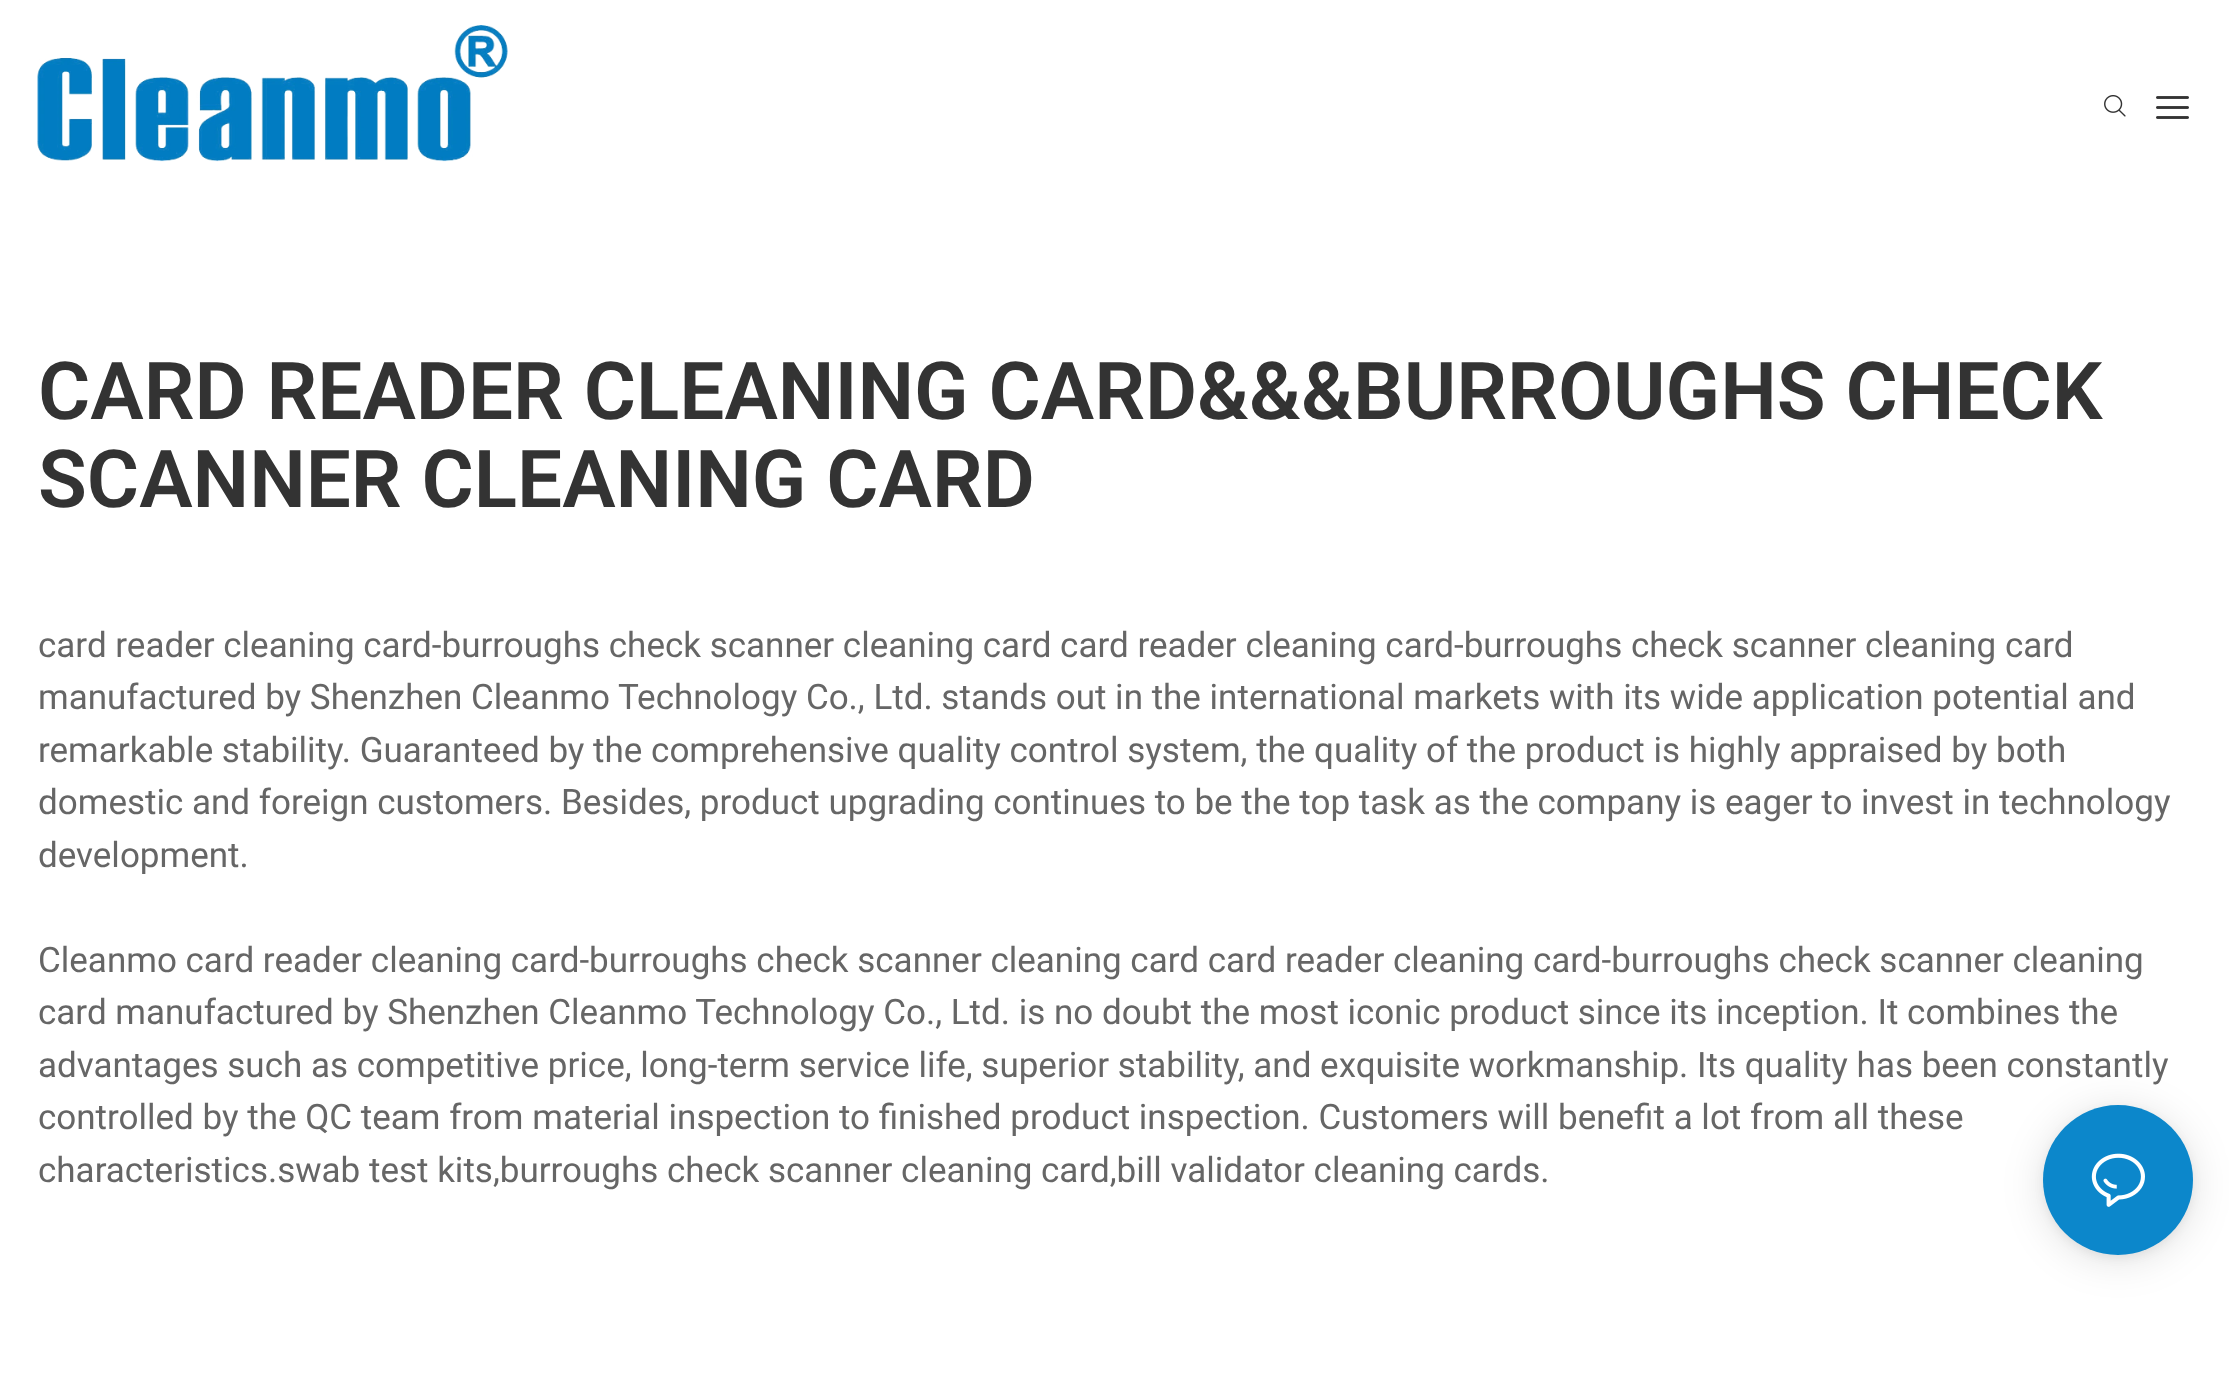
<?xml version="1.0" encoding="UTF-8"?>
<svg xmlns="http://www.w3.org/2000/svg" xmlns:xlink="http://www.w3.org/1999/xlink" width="2229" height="1393">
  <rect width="100%" height="100%" fill="#ffffff" />
  <image x="37" y="25" width="471" height="137" xlink:href="image1.png" />
  <image x="2104" y="95" width="22" height="22" xlink:href="image2.png" />
  <image x="2156" y="96" width="33" height="23" xlink:href="image3.png" />
  <rect x="2043" y="1110" width="150" height="150" rx="75" fill="#000000" fill-opacity="0.12" filter="blur(20px)" />
  <rect x="2043" y="1108" width="150" height="150" rx="75" fill="#000000" fill-opacity="0.06" filter="blur(5px)" />
  <circle cx="2118" cy="1180" r="75" fill="#0c87cb" />
  <image x="2091" y="1153" width="54" height="54" xlink:href="image4.png" />
  <text x="38" y="419" style="font-family: Roboto; font-size: 80px; font-weight: 600; fill: #333333">CARD READER CLEANING CARD&amp;&amp;&amp;BURROUGHS CHECK</text>
  <text x="38" y="507" style="font-family: Roboto; font-size: 80px; font-weight: 600; fill: #333333">SCANNER CLEANING CARD</text>
  <text x="38" y="657" style="font-family: Roboto; font-size: 35px; fill: #666666">card reader cleaning card-burroughs check scanner cleaning card card reader cleaning card-burroughs check scanner cleaning card</text>
  <text x="38" y="709" style="font-family: Roboto; font-size: 35px; fill: #666666">manufactured by Shenzhen Cleanmo Technology Co., Ltd. stands out in the international markets with its wide application potential and</text>
  <text x="38" y="762" style="font-family: Roboto; font-size: 35px; fill: #666666">remarkable stability. Guaranteed by the comprehensive quality control system, the quality of the product is highly appraised by both</text>
  <text x="38" y="814" style="font-family: Roboto; font-size: 35px; fill: #666666">domestic and foreign customers. Besides, product upgrading continues to be the top task as the company is eager to invest in technology</text>
  <text x="38" y="867" style="font-family: Roboto; font-size: 35px; fill: #666666">development.</text>
  <text x="38" y="972" style="font-family: Roboto; font-size: 35px; fill: #666666">Cleanmo card reader cleaning card-burroughs check scanner cleaning card card reader cleaning card-burroughs check scanner cleaning</text>
  <text x="38" y="1024" style="font-family: Roboto; font-size: 35px; fill: #666666">card manufactured by Shenzhen Cleanmo Technology Co., Ltd. is no doubt the most iconic product since its inception. It combines the</text>
  <text x="38" y="1077" style="font-family: Roboto; font-size: 35px; fill: #666666">advantages such as competitive price, long-term service life, superior stability, and exquisite workmanship. Its quality has been constantly</text>
  <text x="38" y="1129" style="font-family: Roboto; font-size: 35px; fill: #666666">controlled by the QC team from material inspection to finished product inspection. Customers will benefit a lot from all these</text>
  <text x="38" y="1182" style="font-family: Roboto; font-size: 35px; fill: #666666">characteristics.swab test kits,burroughs check scanner cleaning card,bill validator cleaning cards.</text>
</svg>
